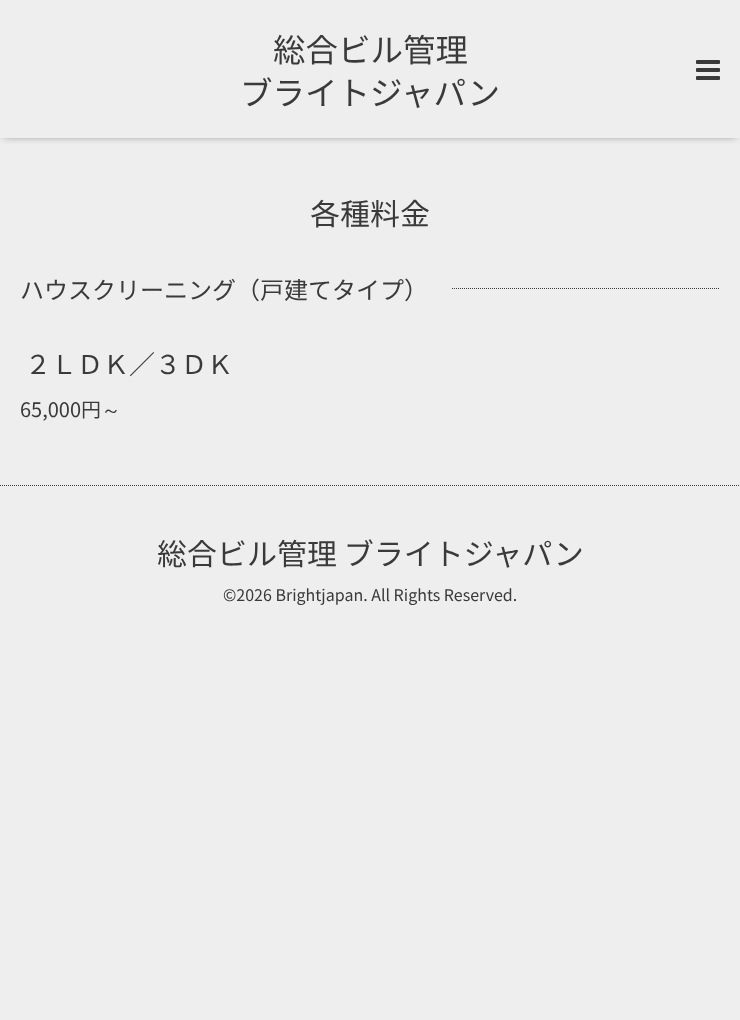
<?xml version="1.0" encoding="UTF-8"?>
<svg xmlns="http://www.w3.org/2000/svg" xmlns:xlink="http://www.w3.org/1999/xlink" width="740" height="1020">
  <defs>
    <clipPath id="clip1"><rect x="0" y="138" width="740" height="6" /></clipPath>
  </defs>
  <rect width="100%" height="100%" fill="#eeeeee" />
  <g clip-path="url(#clip1)">
    <rect x="4" y="5" width="732" height="130" fill="#000000" fill-opacity="0.6" filter="blur(5px)" />
  </g>
  <image x="696" y="60" width="24" height="20" xlink:href="image1.png" />
  <path d="M 20 288.5 h 700" fill="none" stroke="#3a3a3a" stroke-dasharray="1 1" />
  <rect x="20" y="288" width="431" height="1" fill="#eeeeee" />
  <path d="M 0 485.5 h 740" fill="none" stroke="#3a3a3a" stroke-dasharray="1 1" />
  <text x="273" y="62" style="font-family: Noto Sans JP; font-size: 32.5px; fill: #3a3a3a">総合ビル管理</text>
  <text x="240" y="105" style="font-family: Noto Sans JP; font-size: 32.5px; fill: #3a3a3a">ブライトジャパン</text>
  <text x="310" y="225" style="font-family: Noto Sans JP; font-size: 30px; fill: #3a3a3a">各種料金</text>
  <text x="20" y="299" style="font-family: Noto Sans JP; font-size: 24px; fill: #3a3a3a">ハウスクリーニング（戸建てタイプ）</text>
  <text x="25" y="374" style="font-family: Noto Sans JP; font-size: 26px; fill: #3a3a3a">２ＬＤＫ／３ＤＫ</text>
  <text x="20" y="417" style="font-family: Noto Sans JP; font-size: 20px; fill: #3a3a3a">65,000円</text>
  <text x="101" y="417" style="font-family: WenQuanYi Zen Hei; font-size: 20px; font-weight: 500; fill: #3a3a3a">～</text>
  <text x="157" y="565" style="font-family: Noto Sans JP; font-size: 30px; fill: #3a3a3a">総合ビル管理 ブライトジャパン</text>
  <text x="223" y="601" style="font-family: Noto Sans JP; font-size: 16px; fill: #3a3a3a">©2026 Brightjapan. All Rights Reserved.</text>
</svg>
